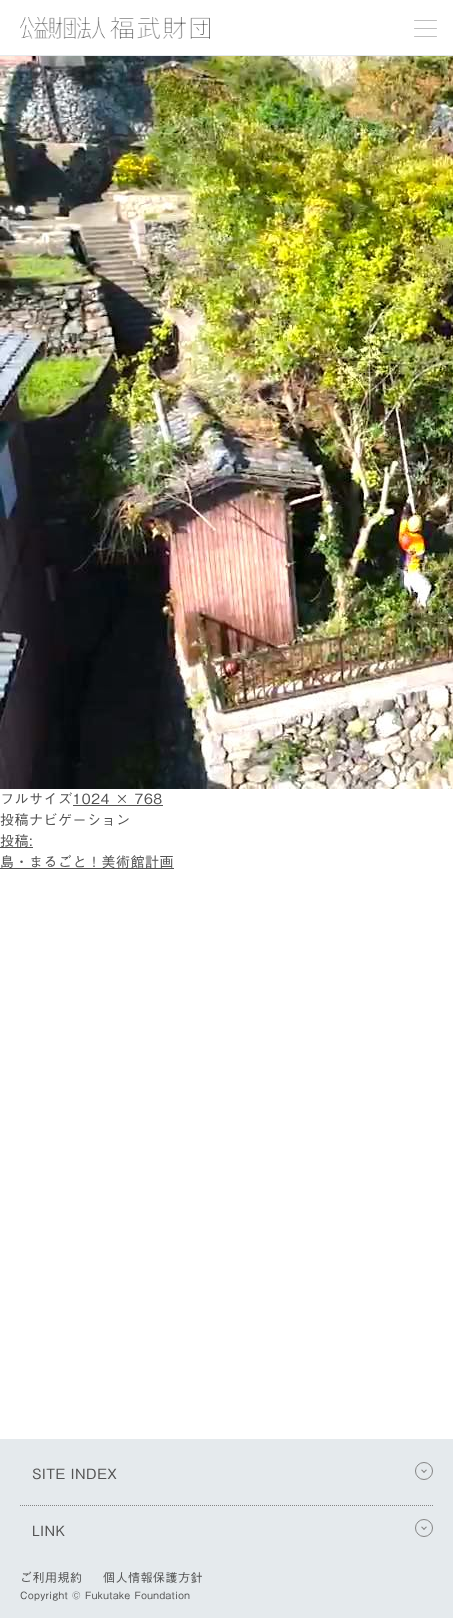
<?xml version="1.0" encoding="UTF-8"?>
<svg xmlns="http://www.w3.org/2000/svg" xmlns:xlink="http://www.w3.org/1999/xlink" width="453" height="1618">
  <rect width="100%" height="100%" fill="#ffffff" />
  <rect y="55" width="453" height="1" fill="#e5eaed" />
  <image x="20" y="17" width="190" height="22" xlink:href="image1.png" />
  <rect x="414" y="20" width="23" height="1" rx="0.5" fill="#bfbfbf" />
  <rect x="414" y="28" width="23" height="1" rx="0.5" fill="#bfbfbf" />
  <rect x="414" y="36" width="23" height="1" rx="0.5" fill="#bfbfbf" />
  <image x="0" y="56" width="453" height="733" xlink:href="image2.png" />
  <rect x="73" y="805" width="90" height="1" fill="#535353" />
  <rect y="847" width="33" height="1" fill="#535353" />
  <rect y="868" width="174" height="1" fill="#535353" />
  <rect y="1439" width="453" height="179" fill="#e5eaed" />
  <circle cx="424" cy="1471" r="8.5" fill="none" stroke="#848484" />
  <path d="M 427 1470 l -3 3 l -0.5 -1 l 2.5 -2.5 z" fill="#848484" />
  <path d="M 424.5 1472 l -0.5 1 l -3 -3 l 1 -0.5 z" fill="#848484" />
  <path d="M 20 1505.5 h 413" fill="none" stroke="#848484" stroke-dasharray="1 1" />
  <circle cx="424" cy="1528" r="8.5" fill="none" stroke="#848484" />
  <path d="M 427 1527 l -3 3 l -0.5 -1 l 2.5 -2.5 z" fill="#848484" />
  <path d="M 424.5 1529 l -0.5 1 l -3 -3 l 1 -0.5 z" fill="#848484" />
  <text x="0" y="804" style="font-family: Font; font-size: 14px; letter-spacing: 0.5px; fill: #535353">フルサイズ1024 × 768</text>
  <text x="0" y="825" style="font-family: Font; font-size: 14px; letter-spacing: 0.5px; fill: #535353">投稿ナビゲーション</text>
  <text x="0" y="846" style="font-family: Font; font-size: 14px; letter-spacing: 0.5px; fill: #535353">投稿:</text>
  <text x="0" y="867" style="font-family: Font; font-size: 14px; letter-spacing: 0.5px; fill: #535353">島・まるごと！美術館計画</text>
  <text x="32" y="1479" style="font-family: Font; font-size: 14px; letter-spacing: 0.5px; fill: #535353">SITE INDEX</text>
  <text x="32" y="1536" style="font-family: Font; font-size: 14px; letter-spacing: 0.5px; fill: #535353">LINK</text>
  <text x="20" y="1582" style="font-family: Font; font-size: 12px; letter-spacing: 0.5px; fill: #535353">ご利用規約</text>
  <text x="103" y="1582" style="font-family: Font; font-size: 12px; letter-spacing: 0.5px; fill: #535353">個人情報保護方針</text>
  <text x="20" y="1599" style="font-family: Font; font-size: 10px; letter-spacing: 0.5px; fill: #535353">Copyright © Fukutake Foundation</text>
</svg>
